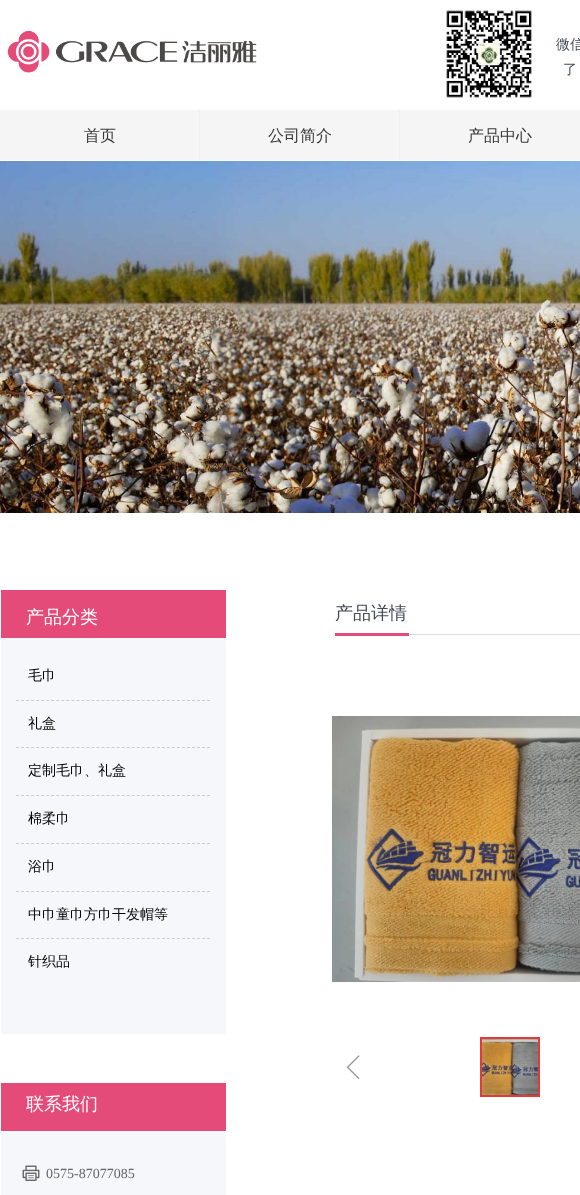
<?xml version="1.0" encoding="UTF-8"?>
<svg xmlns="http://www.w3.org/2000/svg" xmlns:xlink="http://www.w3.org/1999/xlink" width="580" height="1195">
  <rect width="100%" height="100%" fill="#ffffff" />
  <image x="7" y="30" width="250" height="43" xlink:href="image1.png" />
  <image x="446" y="10" width="86" height="88" xlink:href="image2.png" />
  <rect y="110" width="580" height="50" fill="#f5f5f5" />
  <rect x="199" y="110" width="1" height="50" fill="#eeeeee" />
  <rect x="399" y="110" width="1" height="50" fill="#eeeeee" />
  <image x="0" y="161" width="580" height="352" xlink:href="image3.png" />
  <rect x="1" y="590" width="225" height="48" fill="#e44b79" />
  <rect x="1" y="638" width="225" height="396" fill="#f5f7fa" />
  <path d="M 16 700.5 h 194" fill="none" stroke="#cccccc" stroke-dasharray="3 2.03" />
  <path d="M 16 747.5 h 194" fill="none" stroke="#cccccc" stroke-dasharray="3 2.03" />
  <path d="M 16 795.5 h 194" fill="none" stroke="#cccccc" stroke-dasharray="3 2.03" />
  <path d="M 16 843.5 h 194" fill="none" stroke="#cccccc" stroke-dasharray="3 2.03" />
  <path d="M 16 891.5 h 194" fill="none" stroke="#cccccc" stroke-dasharray="3 2.03" />
  <path d="M 16 938.5 h 194" fill="none" stroke="#cccccc" stroke-dasharray="3 2.03" />
  <rect x="1" y="1083" width="225" height="48" fill="#e44b79" />
  <rect x="1" y="1132" width="225" height="63" fill="#f5f7fa" />
  <image x="22" y="1165" width="18" height="16" xlink:href="image4.png" />
  <rect x="335" y="633" width="74" height="3" fill="#e44b79" />
  <rect x="409" y="634" width="171" height="1" fill="#dddddd" />
  <image x="332" y="716" width="248" height="266" xlink:href="image5.png" />
  <image x="346" y="1055" width="14" height="25" xlink:href="image6.png" />
  <image x="482" y="1039" width="56" height="56" xlink:href="image7.png" />
  <rect x="481" y="1038" width="58" height="58" fill="none" stroke="#e43939" stroke-width="2" />
  <text x="556" y="49" style="font-family: WenQuanYi Zen Hei; font-size: 14px; font-weight: 500; fill: #434a54">微信</text>
  <text x="563" y="74" style="font-family: WenQuanYi Zen Hei; font-size: 14px; font-weight: 500; fill: #434a54">了</text>
  <text x="84" y="141" style="font-family: WenQuanYi Zen Hei; font-size: 16px; font-weight: 500; fill: #383838">首页</text>
  <text x="268" y="141" style="font-family: WenQuanYi Zen Hei; font-size: 16px; font-weight: 500; fill: #383838">公司简介</text>
  <text x="468" y="141" style="font-family: WenQuanYi Zen Hei; font-size: 16px; font-weight: 500; fill: #383838">产品中心</text>
  <text x="26" y="623" style="font-family: WenQuanYi Zen Hei; font-size: 18px; font-weight: 500; fill: #ffffff">产品分类</text>
  <text x="28" y="680" style="font-family: WenQuanYi Zen Hei; font-size: 14px; font-weight: 500; fill: #000000">毛巾</text>
  <text x="28" y="728" style="font-family: WenQuanYi Zen Hei; font-size: 14px; font-weight: 500; fill: #000000">礼盒</text>
  <text x="28" y="775" style="font-family: WenQuanYi Zen Hei; font-size: 14px; font-weight: 500; fill: #000000">定制毛巾、礼盒</text>
  <text x="28" y="823" style="font-family: WenQuanYi Zen Hei; font-size: 14px; font-weight: 500; fill: #000000">棉柔巾</text>
  <text x="28" y="871" style="font-family: WenQuanYi Zen Hei; font-size: 14px; font-weight: 500; fill: #000000">浴巾</text>
  <text x="28" y="919" style="font-family: WenQuanYi Zen Hei; font-size: 14px; font-weight: 500; fill: #000000">中巾童巾方巾干发帽等</text>
  <text x="28" y="966" style="font-family: WenQuanYi Zen Hei; font-size: 14px; font-weight: 500; fill: #000000">针织品</text>
  <text x="26" y="1110" style="font-family: WenQuanYi Zen Hei; font-size: 18px; font-weight: 500; fill: #ffffff">联系我们</text>
  <text x="46" y="1178" style="font-family: Liberation Serif; font-size: 14px; fill: #666666">0575-87077085</text>
  <text x="335" y="619" style="font-family: WenQuanYi Zen Hei; font-size: 18px; font-weight: 500; fill: #434a54">产品详情</text>
</svg>
